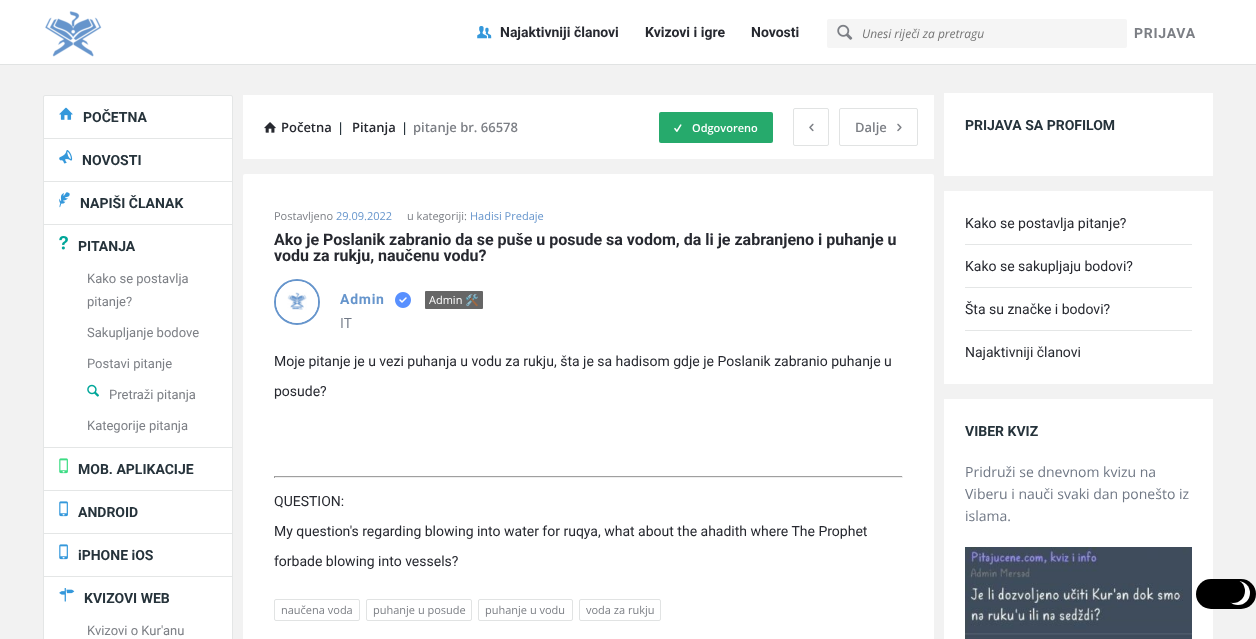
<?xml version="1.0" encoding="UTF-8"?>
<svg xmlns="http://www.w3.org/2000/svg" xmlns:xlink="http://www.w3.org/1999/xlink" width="1256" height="639">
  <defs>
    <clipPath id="clip1"><rect x="274" y="232" width="629" height="32" /></clipPath>
  </defs>
  <rect width="100%" height="100%" fill="#f2f2f2" />
  <rect width="1256" height="64" fill="#ffffff" />
  <rect y="64" width="1256" height="1" fill="#e1e3e3" />
  <image x="45" y="11" width="57" height="46" xlink:href="image1.png" />
  <image x="477" y="26" width="15" height="13" xlink:href="image2.png" />
  <rect x="827" y="19" width="300" height="29" rx="2" fill="#f5f5f5" />
  <image x="837" y="24" width="16" height="16" xlink:href="image3.png" />
  <rect x="43.5" y="95.5" width="189" height="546" rx="1.5" fill="#ffffff" stroke="#e4e6e6" />
  <rect x="44" y="138" width="188" height="1" fill="#e4e6e6" />
  <image x="59" y="107" width="14" height="13" xlink:href="image4.png" />
  <rect x="44" y="181" width="188" height="1" fill="#e4e6e6" />
  <image x="59" y="150" width="14" height="14" xlink:href="image5.png" />
  <rect x="44" y="224" width="188" height="1" fill="#e4e6e6" />
  <image x="59" y="192" width="11" height="16" xlink:href="image6.png" />
  <rect x="44" y="447" width="188" height="1" fill="#e4e6e6" />
  <image x="59" y="236" width="9" height="14" xlink:href="image7.png" />
  <image x="87" y="384" width="12" height="13" xlink:href="image8.png" />
  <rect x="44" y="490" width="188" height="1" fill="#e4e6e6" />
  <image x="59" y="458" width="9" height="16" xlink:href="image9.png" />
  <rect x="44" y="533" width="188" height="1" fill="#e4e6e6" />
  <image x="59" y="501" width="9" height="16" xlink:href="image10.png" />
  <rect x="44" y="576" width="188" height="1" fill="#e4e6e6" />
  <image x="59" y="544" width="9" height="16" xlink:href="image10.png" />
  <image x="59" y="588" width="16" height="14" xlink:href="image11.png" />
  <rect x="243" y="95" width="691" height="64" fill="#ffffff" />
  <image x="264" y="122" width="12" height="11" xlink:href="image12.png" />
  <rect x="659" y="112" width="114" height="31" rx="2" fill="#26aa6c" />
  <image x="674" y="124" width="8" height="8" xlink:href="image13.png" />
  <rect x="793.5" y="108.5" width="35" height="37" rx="1.5" fill="none" stroke="#e1e3e3" />
  <image x="809" y="123" width="5" height="9" xlink:href="image14.png" />
  <rect x="839.5" y="108.5" width="78" height="37" rx="1.5" fill="none" stroke="#e1e3e3" />
  <image x="897" y="123" width="5" height="9" xlink:href="image15.png" />
  <rect x="243" y="174" width="691" height="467" rx="2" fill="#ffffff" />
  <circle cx="297" cy="302" r="22" fill="none" stroke="#6695cc" stroke-width="2" />
  <circle cx="297" cy="302" r="19.5" fill="none" stroke="#ffffff" stroke-width="3" />
  <image x="287" y="292" width="20" height="18" xlink:href="image16.png" />
  <image x="395" y="292" width="16" height="16" xlink:href="image17.png" />
  <rect x="425" y="291" width="58" height="18" rx="1" fill="#666666" />
  <rect x="274" y="476" width="629" height="1" fill="#9f9f9f" />
  <rect x="902" y="476" width="1" height="2" fill="#eeeeee" />
  <rect x="274" y="477" width="629" height="1" fill="#eeeeee" />
  <rect x="274" y="476" width="1" height="2" fill="#9f9f9f" />
  <rect x="274.5" y="599.5" width="85" height="21" rx="1.5" fill="none" stroke="#e1e3e3" />
  <rect x="366.5" y="599.5" width="105" height="21" rx="1.5" fill="none" stroke="#e1e3e3" />
  <rect x="478.5" y="599.5" width="94" height="21" rx="1.5" fill="none" stroke="#e1e3e3" />
  <rect x="579.5" y="599.5" width="81" height="21" rx="1.5" fill="none" stroke="#e1e3e3" />
  <rect x="944" y="93" width="269" height="83" fill="#ffffff" />
  <rect x="944" y="191" width="269" height="193" fill="#ffffff" />
  <rect x="965" y="244" width="227" height="1" fill="#e4e6e6" />
  <rect x="965" y="287" width="227" height="1" fill="#e4e6e6" />
  <rect x="965" y="330" width="227" height="1" fill="#e4e6e6" />
  <rect x="944" y="399" width="269" height="240" fill="#ffffff" />
  <image x="965" y="547" width="227" height="92" xlink:href="image18.png" />
  <rect x="1196" y="579" width="60" height="30" rx="15" fill="#000000" />
  <circle cx="1238" cy="593" r="12" fill="#ffffff" />
  <circle cx="1233" cy="591" r="12" fill="#000000" />
  <text x="500" y="37" style="font-family: Roboto; font-size: 14px; font-weight: bold; fill: #272930">Najaktivniji članovi</text>
  <text x="645" y="37" style="font-family: Roboto; font-size: 14px; font-weight: bold; fill: #272930">Kvizovi i igre</text>
  <text x="751" y="37" style="font-family: Roboto; font-size: 14px; font-weight: bold; fill: #272930">Novosti</text>
  <text x="862" y="38" style="font-family: Open Sans; font-size: 12px; font-style: italic; fill: #757575">Unesi riječi za pretragu</text>
  <text x="1134" y="38" style="font-family: Roboto; font-size: 14px; font-weight: bold; letter-spacing: 0.75px; fill: #7c7f85">PRIJAVA</text>
  <text x="83" y="122" style="font-family: Roboto; font-size: 14px; font-weight: bold; fill: #26333b">POČETNA</text>
  <text x="82" y="165" style="font-family: Roboto; font-size: 14px; font-weight: bold; fill: #26333b">NOVOSTI</text>
  <text x="80" y="208" style="font-family: Roboto; font-size: 14px; font-weight: bold; fill: #26333b">NAPIŠI ČLANAK</text>
  <text x="78" y="251" style="font-family: Roboto; font-size: 14px; font-weight: bold; fill: #26333b">PITANJA</text>
  <text x="87" y="283" style="font-family: Roboto; font-size: 13px; fill: #7c7f85">Kako se postavlja</text>
  <text x="87" y="306" style="font-family: Roboto; font-size: 13px; fill: #7c7f85">pitanje?</text>
  <text x="87" y="337" style="font-family: Roboto; font-size: 13px; fill: #7c7f85">Sakupljanje bodove</text>
  <text x="87" y="368" style="font-family: Roboto; font-size: 13px; fill: #7c7f85">Postavi pitanje</text>
  <text x="109" y="399" style="font-family: Roboto; font-size: 13px; fill: #7c7f85">Pretraži pitanja</text>
  <text x="87" y="430" style="font-family: Roboto; font-size: 13px; fill: #7c7f85">Kategorije pitanja</text>
  <text x="78" y="474" style="font-family: Roboto; font-size: 14px; font-weight: bold; fill: #26333b">MOB. APLIKACIJE</text>
  <text x="78" y="517" style="font-family: Roboto; font-size: 14px; font-weight: bold; fill: #26333b">ANDROID</text>
  <text x="78" y="560" style="font-family: Roboto; font-size: 14px; font-weight: bold; fill: #26333b">iPHONE iOS</text>
  <text x="84" y="603" style="font-family: Roboto; font-size: 14px; font-weight: bold; fill: #26333b">KVIZOVI WEB</text>
  <text x="87" y="635" style="font-family: Roboto; font-size: 13px; fill: #7c7f85">Kvizovi o Kur'anu</text>
  <text x="281" y="132" style="font-family: Open Sans; font-size: 13px; font-weight: 600; fill: #272930">Početna</text>
  <text x="337" y="132" style="font-family: Open Sans; font-size: 13px; font-weight: 600; fill: #26333b">|</text>
  <text x="352" y="132" style="font-family: Open Sans; font-size: 13px; font-weight: 600; fill: #272930">Pitanja</text>
  <text x="401" y="132" style="font-family: Open Sans; font-size: 13px; font-weight: 600; fill: #26333b">|</text>
  <text x="413" y="132" style="font-family: Open Sans; font-size: 13px; font-weight: 600; fill: #7c7f85">pitanje br. 66578</text>
  <text x="692" y="132" style="font-family: Open Sans; font-size: 11px; font-weight: 600; fill: #ffffff">Odgovoreno</text>
  <text x="855" y="132" style="font-family: Open Sans; font-size: 13px; font-weight: 600; fill: #7c7f85">Dalje</text>
  <text x="274" y="220" style="font-family: Open Sans; font-size: 11px; fill: #7c7f85">Postavljeno</text>
  <text x="336" y="220" style="font-family: Open Sans; font-size: 11px; fill: #6695cc">29.09.2022</text>
  <text x="407" y="220" style="font-family: Open Sans; font-size: 11px; fill: #7c7f85">u kategoriji:</text>
  <text x="470" y="220" style="font-family: Open Sans; font-size: 11px; fill: #6695cc">Hadisi Predaje</text>
  <text x="274" y="245" style="font-family: Roboto; font-size: 16px; font-weight: bold; fill: #272930">Ako je Poslanik zabranio da se puše u posude sa vodom, da li je zabranjeno i puhanje u</text>
  <g clip-path="url(#clip1)">
    <text x="274" y="261" style="font-family: Roboto; font-size: 16px; font-weight: bold; fill: #272930">vodu za rukju, naučenu vodu?</text>
  </g>
  <text x="340" y="304" style="font-family: Roboto; font-size: 14px; font-weight: bold; letter-spacing: 0.75px; fill: #6695cc">Admin</text>
  <text x="429" y="304" style="font-family: Open Sans; font-size: 11px; fill: #ffffff">Admin</text>
  <text x="465" y="304" style="font-family: Noto Color Emoji; font-size: 11px; fill: #ffffff">🛠️</text>
  <text x="340" y="328" style="font-family: Open Sans; font-size: 14px; fill: #707885">IT</text>
  <text x="274" y="366" style="font-family: Roboto; font-size: 14px; fill: #272930">Moje pitanje je u vezi puhanja u vodu za rukju, šta je sa hadisom gdje je Poslanik zabranio puhanje u</text>
  <text x="274" y="396" style="font-family: Roboto; font-size: 14px; fill: #272930">posude?</text>
  <text x="274" y="506" style="font-family: Roboto; font-size: 14px; fill: #272930">QUESTION:</text>
  <text x="274" y="536" style="font-family: Roboto; font-size: 14px; fill: #272930">My question's regarding blowing into water for ruqya, what about the ahadith where The Prophet</text>
  <text x="274" y="566" style="font-family: Roboto; font-size: 14px; fill: #272930">forbade blowing into vessels?</text>
  <text x="281" y="614" style="font-family: Open Sans; font-size: 11px; fill: #7c7f85">naučena voda</text>
  <text x="373" y="614" style="font-family: Open Sans; font-size: 11px; fill: #7c7f85">puhanje u posude</text>
  <text x="485" y="614" style="font-family: Open Sans; font-size: 11px; fill: #7c7f85">puhanje u vodu</text>
  <text x="586" y="614" style="font-family: Open Sans; font-size: 11px; fill: #7c7f85">voda za rukju</text>
  <text x="965" y="130" style="font-family: Roboto; font-size: 14px; font-weight: bold; fill: #26333b">PRIJAVA SA PROFILOM</text>
  <text x="965" y="228" style="font-family: Roboto; font-size: 14px; fill: #272930">Kako se postavlja pitanje?</text>
  <text x="965" y="271" style="font-family: Roboto; font-size: 14px; fill: #272930">Kako se sakupljaju bodovi?</text>
  <text x="965" y="314" style="font-family: Roboto; font-size: 14px; fill: #272930">Šta su značke i bodovi?</text>
  <text x="965" y="357" style="font-family: Roboto; font-size: 14px; fill: #272930">Najaktivniji članovi</text>
  <text x="965" y="436" style="font-family: Roboto; font-size: 14px; font-weight: bold; fill: #26333b">VIBER KVIZ</text>
  <text x="965" y="477" style="font-family: Open Sans; font-size: 14px; fill: #707885">Pridruži se dnevnom kvizu na</text>
  <text x="965" y="499" style="font-family: Open Sans; font-size: 14px; fill: #707885">Viberu i nauči svaki dan ponešto iz</text>
  <text x="965" y="521" style="font-family: Open Sans; font-size: 14px; fill: #707885">islama.</text>
</svg>
